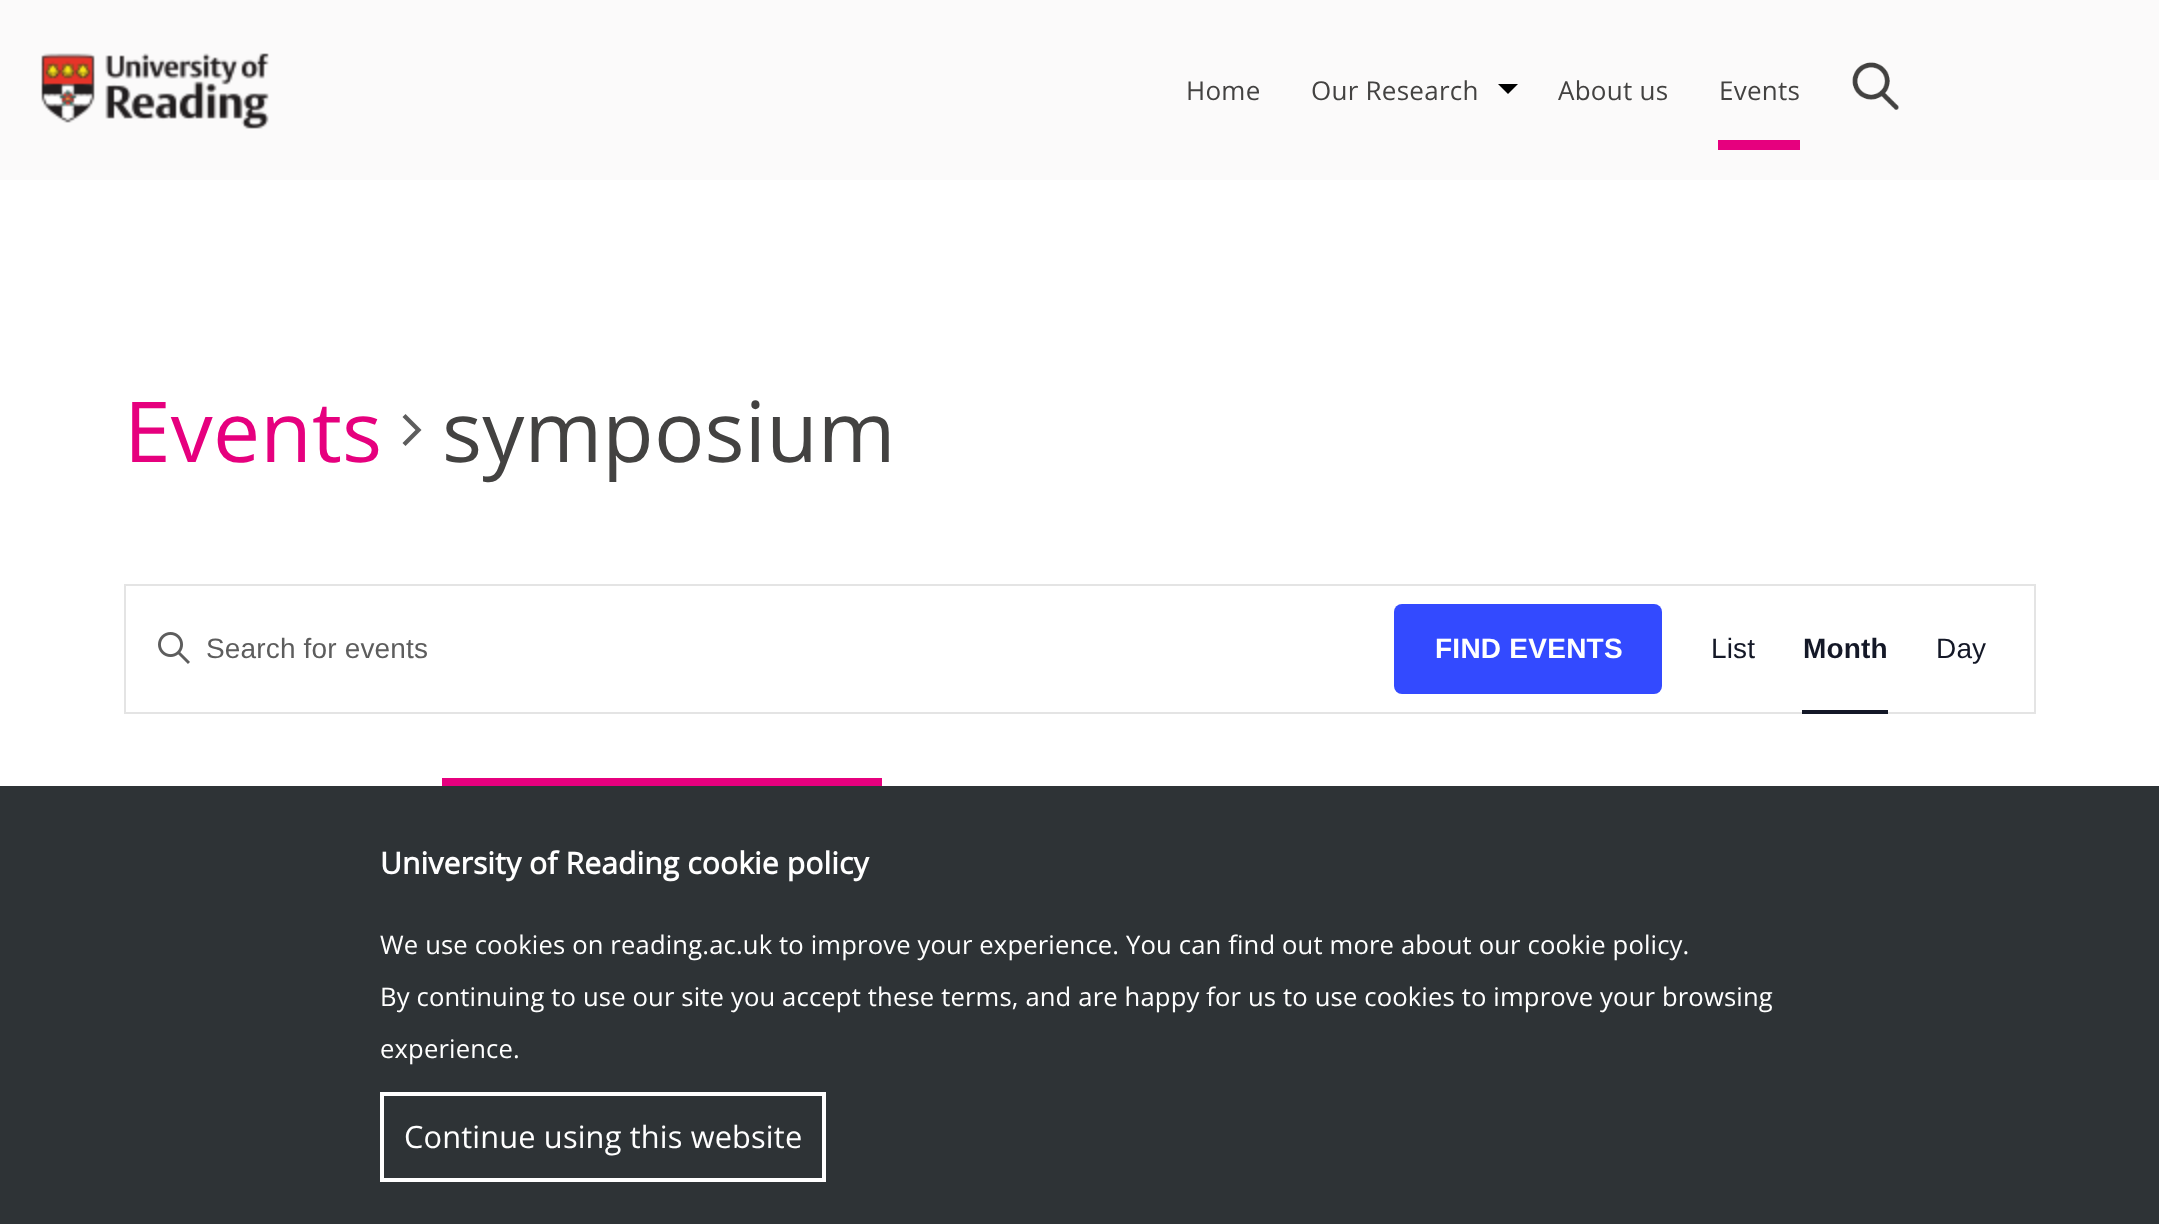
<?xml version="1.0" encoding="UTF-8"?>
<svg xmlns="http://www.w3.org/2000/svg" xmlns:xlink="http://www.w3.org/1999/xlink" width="2159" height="1224">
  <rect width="100%" height="100%" fill="#ffffff" />
  <rect width="2159" height="180" fill="#fbfafa" />
  <image x="41" y="53" width="228" height="76" xlink:href="image1.png" />
  <path d="M 1498 84 h 20 l -10 10 z" fill="#000000" />
  <rect x="1718" y="140" width="82" height="10" fill="#e6007e" />
  <image x="1852" y="62" width="47" height="48" xlink:href="image2.png" />
  <path d="M 402.5 417 l 3 -3 l 16 16 l -16 16 l -3 -3 l 13 -13 z" fill="#5d5d5d" />
  <rect x="125" y="585" width="1910" height="128" fill="none" stroke="#e4e4e4" stroke-width="2" />
  <image x="158" y="632" width="32" height="32" xlink:href="image3.png" />
  <rect x="1394" y="604" width="268" height="90" rx="8" fill="#334aff" />
  <rect x="1802" y="710" width="86" height="4" fill="#141827" />
  <rect x="442" y="778" width="440" height="8" fill="#e6007e" />
  <rect y="786" width="2159" height="438" fill="#2e3336" />
  <rect x="382" y="1094" width="442" height="86" fill="none" stroke="#ffffff" stroke-width="4" />
  <text x="1186" y="100" style="font-family: Open Sans; font-size: 26px; letter-spacing: 0.25px; fill: #434241">Home</text>
  <text x="1311" y="100" style="font-family: Open Sans; font-size: 26px; letter-spacing: 0.25px; fill: #434241">Our Research</text>
  <text x="1558" y="100" style="font-family: Open Sans; font-size: 26px; letter-spacing: 0.25px; fill: #434241">About us</text>
  <text x="1719" y="100" style="font-family: Open Sans; font-size: 26px; letter-spacing: 0.25px; fill: #434241">Events</text>
  <text x="124" y="462" style="font-family: Open Sans; font-size: 84px; letter-spacing: 0.16px; fill: #e6007e">Events</text>
  <text x="442" y="462" style="font-family: Open Sans; font-size: 84px; letter-spacing: 0.16px; fill: #434241">symposium</text>
  <text x="206" y="658" style="font-family: Liberation Sans; font-size: 28px; letter-spacing: 0.16px; fill: #5d5d5d">Search for events</text>
  <text x="1435" y="658" style="font-family: Liberation Sans; font-size: 28px; font-weight: bold; letter-spacing: 0.25px; fill: #ffffff">FIND EVENTS</text>
  <text x="1711" y="658" style="font-family: Liberation Sans; font-size: 28px; letter-spacing: 0.16px; fill: #141827">List</text>
  <text x="1803" y="658" style="font-family: Liberation Sans; font-size: 28px; font-weight: bold; letter-spacing: 0.16px; fill: #141827">Month</text>
  <text x="1936" y="658" style="font-family: Liberation Sans; font-size: 28px; letter-spacing: 0.16px; fill: #141827">Day</text>
  <text x="380" y="874" style="font-family: Open Sans; font-size: 30px; font-weight: bold; letter-spacing: 0.16px; fill: #ffffff">University of Reading cookie policy</text>
  <text x="380" y="954" style="font-family: Open Sans; font-size: 25.6px; letter-spacing: 0.16px; fill: #ffffff">We use cookies on reading.ac.uk to improve your experience. You can find out more about our cookie policy.</text>
  <text x="380" y="1006" style="font-family: Open Sans; font-size: 25.6px; letter-spacing: 0.16px; fill: #ffffff">By continuing to use our site you accept these terms, and are happy for us to use cookies to improve your browsing</text>
  <text x="380" y="1058" style="font-family: Open Sans; font-size: 25.6px; letter-spacing: 0.16px; fill: #ffffff">experience.</text>
  <text x="404" y="1148" style="font-family: Open Sans; font-size: 30.75px; letter-spacing: 0.16px; fill: #ffffff">Continue using this website</text>
</svg>
